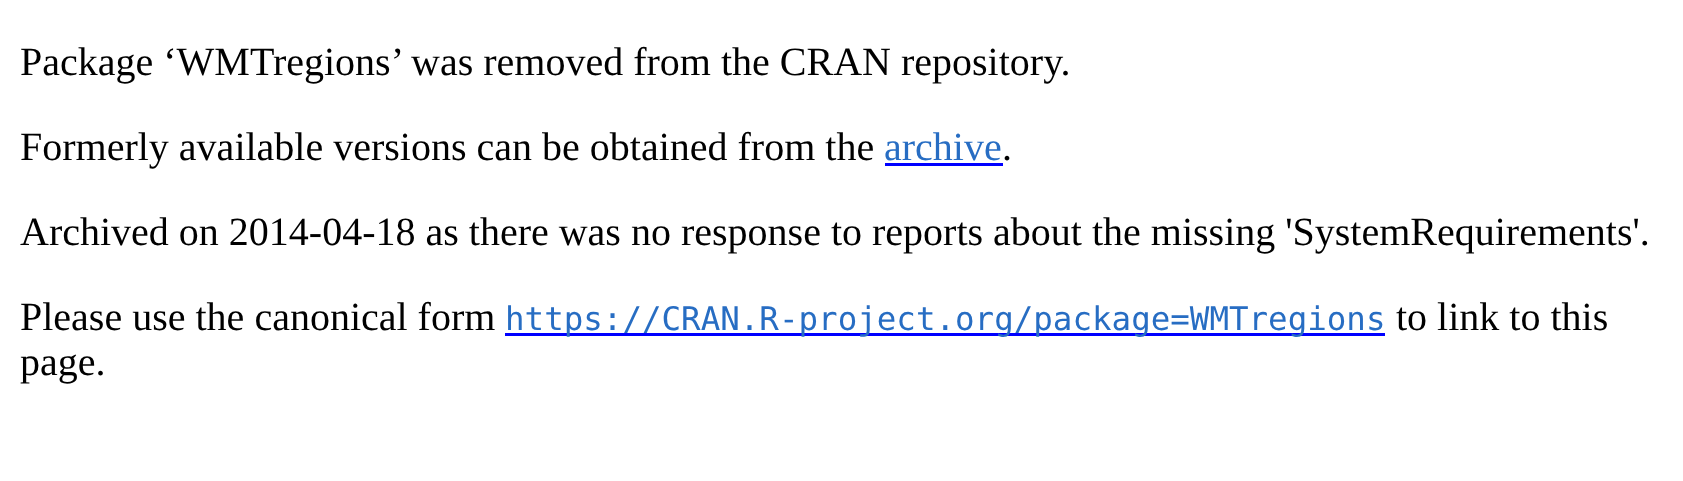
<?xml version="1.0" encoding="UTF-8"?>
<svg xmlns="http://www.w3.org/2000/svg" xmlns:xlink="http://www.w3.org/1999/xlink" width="1683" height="481">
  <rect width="100%" height="100%" fill="#ffffff" />
  <rect x="885" y="163" width="118" height="3" fill="#0000ff" />
  <rect x="505" y="333" width="880" height="3" fill="#0000ff" />
  <text x="20" y="75" style="font-family: Liberation Serif; font-size: 40px; fill: #000000">Package ‘WMTregions’ was removed from the CRAN repository.</text>
  <text x="20" y="160" style="font-family: Liberation Serif; font-size: 40px; fill: #000000">Formerly available versions can be obtained from the</text>
  <text x="884" y="160" style="font-family: Liberation Serif; font-size: 40px; fill: #276dc3">archive</text>
  <text x="1002" y="160" style="font-family: Liberation Serif; font-size: 40px; fill: #000000">.</text>
  <text x="20" y="245" style="font-family: Liberation Serif; font-size: 40px; fill: #000000">Archived on 2014-04-18 as there was no response to reports about the missing 'SystemRequirements'.</text>
  <text x="20" y="330" style="font-family: Liberation Serif; font-size: 40px; fill: #000000">Please use the canonical form</text>
  <text x="505" y="330" style="font-family: DejaVu Sans Mono; font-size: 32.5px; fill: #276dc3">https://CRAN.R-project.org/package=WMTregions</text>
  <text x="1396" y="330" style="font-family: Liberation Serif; font-size: 40px; fill: #000000">to link to this</text>
  <text x="20" y="375" style="font-family: Liberation Serif; font-size: 40px; fill: #000000">page.</text>
</svg>
